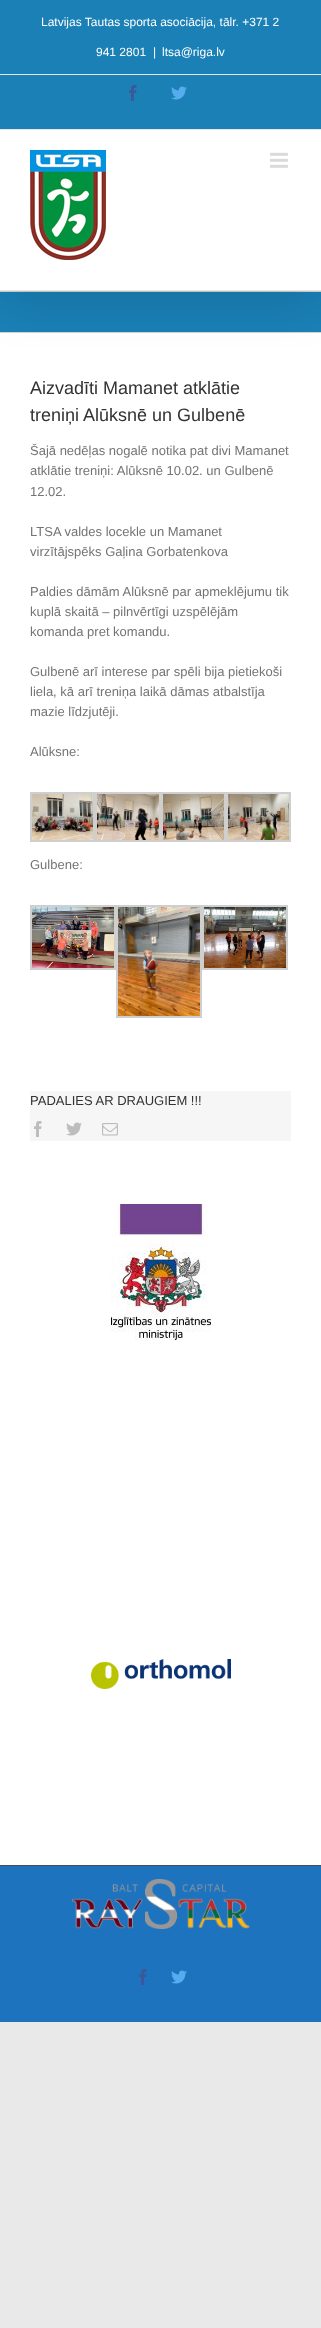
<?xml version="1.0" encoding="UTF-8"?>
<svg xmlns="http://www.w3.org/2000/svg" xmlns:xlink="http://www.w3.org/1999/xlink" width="321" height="2328">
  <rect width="100%" height="100%" fill="#e9e9e9" />
  <rect y="292" width="321" height="40" fill="#1a80b6" />
  <rect y="291" width="321" height="1" fill="#d2d3d4" />
  <rect y="332" width="321" height="1" fill="#d2d3d4" />
  <rect y="333" width="321" height="1532" fill="#ffffff" />
  <rect x="2" y="12" width="317" height="287" fill="#000000" fill-opacity="0.14" filter="blur(25px)" />
  <rect width="321" height="129" fill="#1a80b6" />
  <rect y="129" width="321" height="1" fill="#e5e5e5" />
  <rect y="74" width="321" height="1" fill="#e5e5e5" />
  <image x="129" y="85" width="8" height="16" xlink:href="image1.png" />
  <image x="171" y="86" width="16" height="14" xlink:href="image2.png" />
  <rect y="130" width="321" height="160" fill="#ffffff" />
  <rect y="290" width="321" height="1" fill="#e5e5e5" />
  <image x="30" y="150" width="76" height="110" xlink:href="image3.png" />
  <image x="270" y="152" width="18" height="16" xlink:href="image4.png" />
  <rect x="31" y="793" width="63" height="48" fill="none" stroke="#cfcfcf" stroke-width="2" />
  <image x="32" y="794" width="61" height="46" xlink:href="image5.png" />
  <rect x="96" y="793" width="64" height="48" fill="none" stroke="#cfcfcf" stroke-width="2" />
  <image x="97" y="794" width="62" height="46" xlink:href="image6.png" />
  <rect x="162" y="793" width="63" height="48" fill="none" stroke="#cfcfcf" stroke-width="2" />
  <image x="163" y="794" width="61" height="46" xlink:href="image7.png" />
  <rect x="227" y="793" width="63" height="48" fill="none" stroke="#cfcfcf" stroke-width="2" />
  <image x="228" y="794" width="61" height="46" xlink:href="image8.png" />
  <rect x="31" y="906" width="84" height="63" fill="none" stroke="#cfcfcf" stroke-width="2" />
  <image x="32" y="907" width="82" height="61" xlink:href="image9.png" />
  <rect x="117" y="906" width="84" height="111" fill="none" stroke="#cfcfcf" stroke-width="2" />
  <image x="118" y="907" width="82" height="109" xlink:href="image10.png" />
  <rect x="203" y="906" width="84" height="63" fill="none" stroke="#cfcfcf" stroke-width="2" />
  <image x="204" y="907" width="82" height="61" xlink:href="image11.png" />
  <rect x="30" y="1091" width="261" height="50" fill="#f6f6f6" />
  <image x="34" y="1121" width="8" height="16" xlink:href="image12.png" />
  <image x="66" y="1122" width="16" height="14" xlink:href="image13.png" />
  <image x="102" y="1123" width="16" height="13" xlink:href="image14.png" />
  <image x="111" y="1204" width="100" height="136" xlink:href="image15.png" />
  <image x="91" y="1659" width="140" height="30" xlink:href="image16.png" />
  <rect y="1866" width="321" height="156" fill="#1e73be" />
  <rect y="1865" width="321" height="1" fill="#4b4c4d" />
  <image x="72" y="1879" width="178" height="50" xlink:href="image17.png" />
  <image x="139" y="1969" width="8" height="16" xlink:href="image18.png" />
  <image x="171" y="1970" width="16" height="14" xlink:href="image19.png" />
  <text x="41" y="26" style="font-family: Liberation Sans; font-size: 12px; fill: #ffffff">Latvijas Tautas sporta asociācija, tālr. +371 2</text>
  <text x="96" y="56" style="font-family: Liberation Sans; font-size: 12px; fill: #ffffff">941 2801</text>
  <text x="153" y="56" style="font-family: Liberation Sans; font-size: 12px; fill: #ffffff">|</text>
  <text x="162" y="56" style="font-family: Liberation Sans; font-size: 12px; fill: #ffffff">ltsa@riga.lv</text>
  <text x="30" y="394" style="font-family: Liberation Sans; font-size: 18px; fill: #333333">Aizvadīti Mamanet atklātie</text>
  <text x="30" y="421" style="font-family: Liberation Sans; font-size: 18px; fill: #333333">treniņi Alūksnē un Gulbenē</text>
  <text x="30" y="455" style="font-family: Liberation Sans; font-size: 13px; fill: #747474">Šajā nedēļas nogalē notika pat divi Mamanet</text>
  <text x="30" y="475" style="font-family: Liberation Sans; font-size: 13px; fill: #747474">atklātie treniņi: Alūksnē 10.02. un Gulbenē</text>
  <text x="30" y="496" style="font-family: Liberation Sans; font-size: 13px; fill: #747474">12.02.</text>
  <text x="30" y="536" style="font-family: Liberation Sans; font-size: 13px; fill: #747474">LTSA valdes locekle un Mamanet</text>
  <text x="30" y="556" style="font-family: Liberation Sans; font-size: 13px; fill: #747474">virzītājspēks Gaļina Gorbatenkova</text>
  <text x="30" y="596" style="font-family: Liberation Sans; font-size: 13px; fill: #747474">Paldies dāmām Alūksnē par apmeklējumu tik</text>
  <text x="30" y="616" style="font-family: Liberation Sans; font-size: 13px; fill: #747474">kuplā skaitā – pilnvērtīgi uzspēlējām</text>
  <text x="30" y="636" style="font-family: Liberation Sans; font-size: 13px; fill: #747474">komanda pret komandu.</text>
  <text x="30" y="676" style="font-family: Liberation Sans; font-size: 13px; fill: #747474">Gulbenē arī interese par spēli bija pietiekoši</text>
  <text x="30" y="696" style="font-family: Liberation Sans; font-size: 13px; fill: #747474">liela, kā arī treniņa laikā dāmas atbalstīja</text>
  <text x="30" y="716" style="font-family: Liberation Sans; font-size: 13px; fill: #747474">mazie līdzjutēji.</text>
  <text x="30" y="756" style="font-family: Liberation Sans; font-size: 13px; fill: #747474">Alūksne:</text>
  <text x="30" y="869" style="font-family: Liberation Sans; font-size: 13px; fill: #747474">Gulbene:</text>
  <text x="30" y="1105" style="font-family: Liberation Sans; font-size: 13px; fill: #333333">PADALIES AR DRAUGIEM !!!</text>
</svg>
